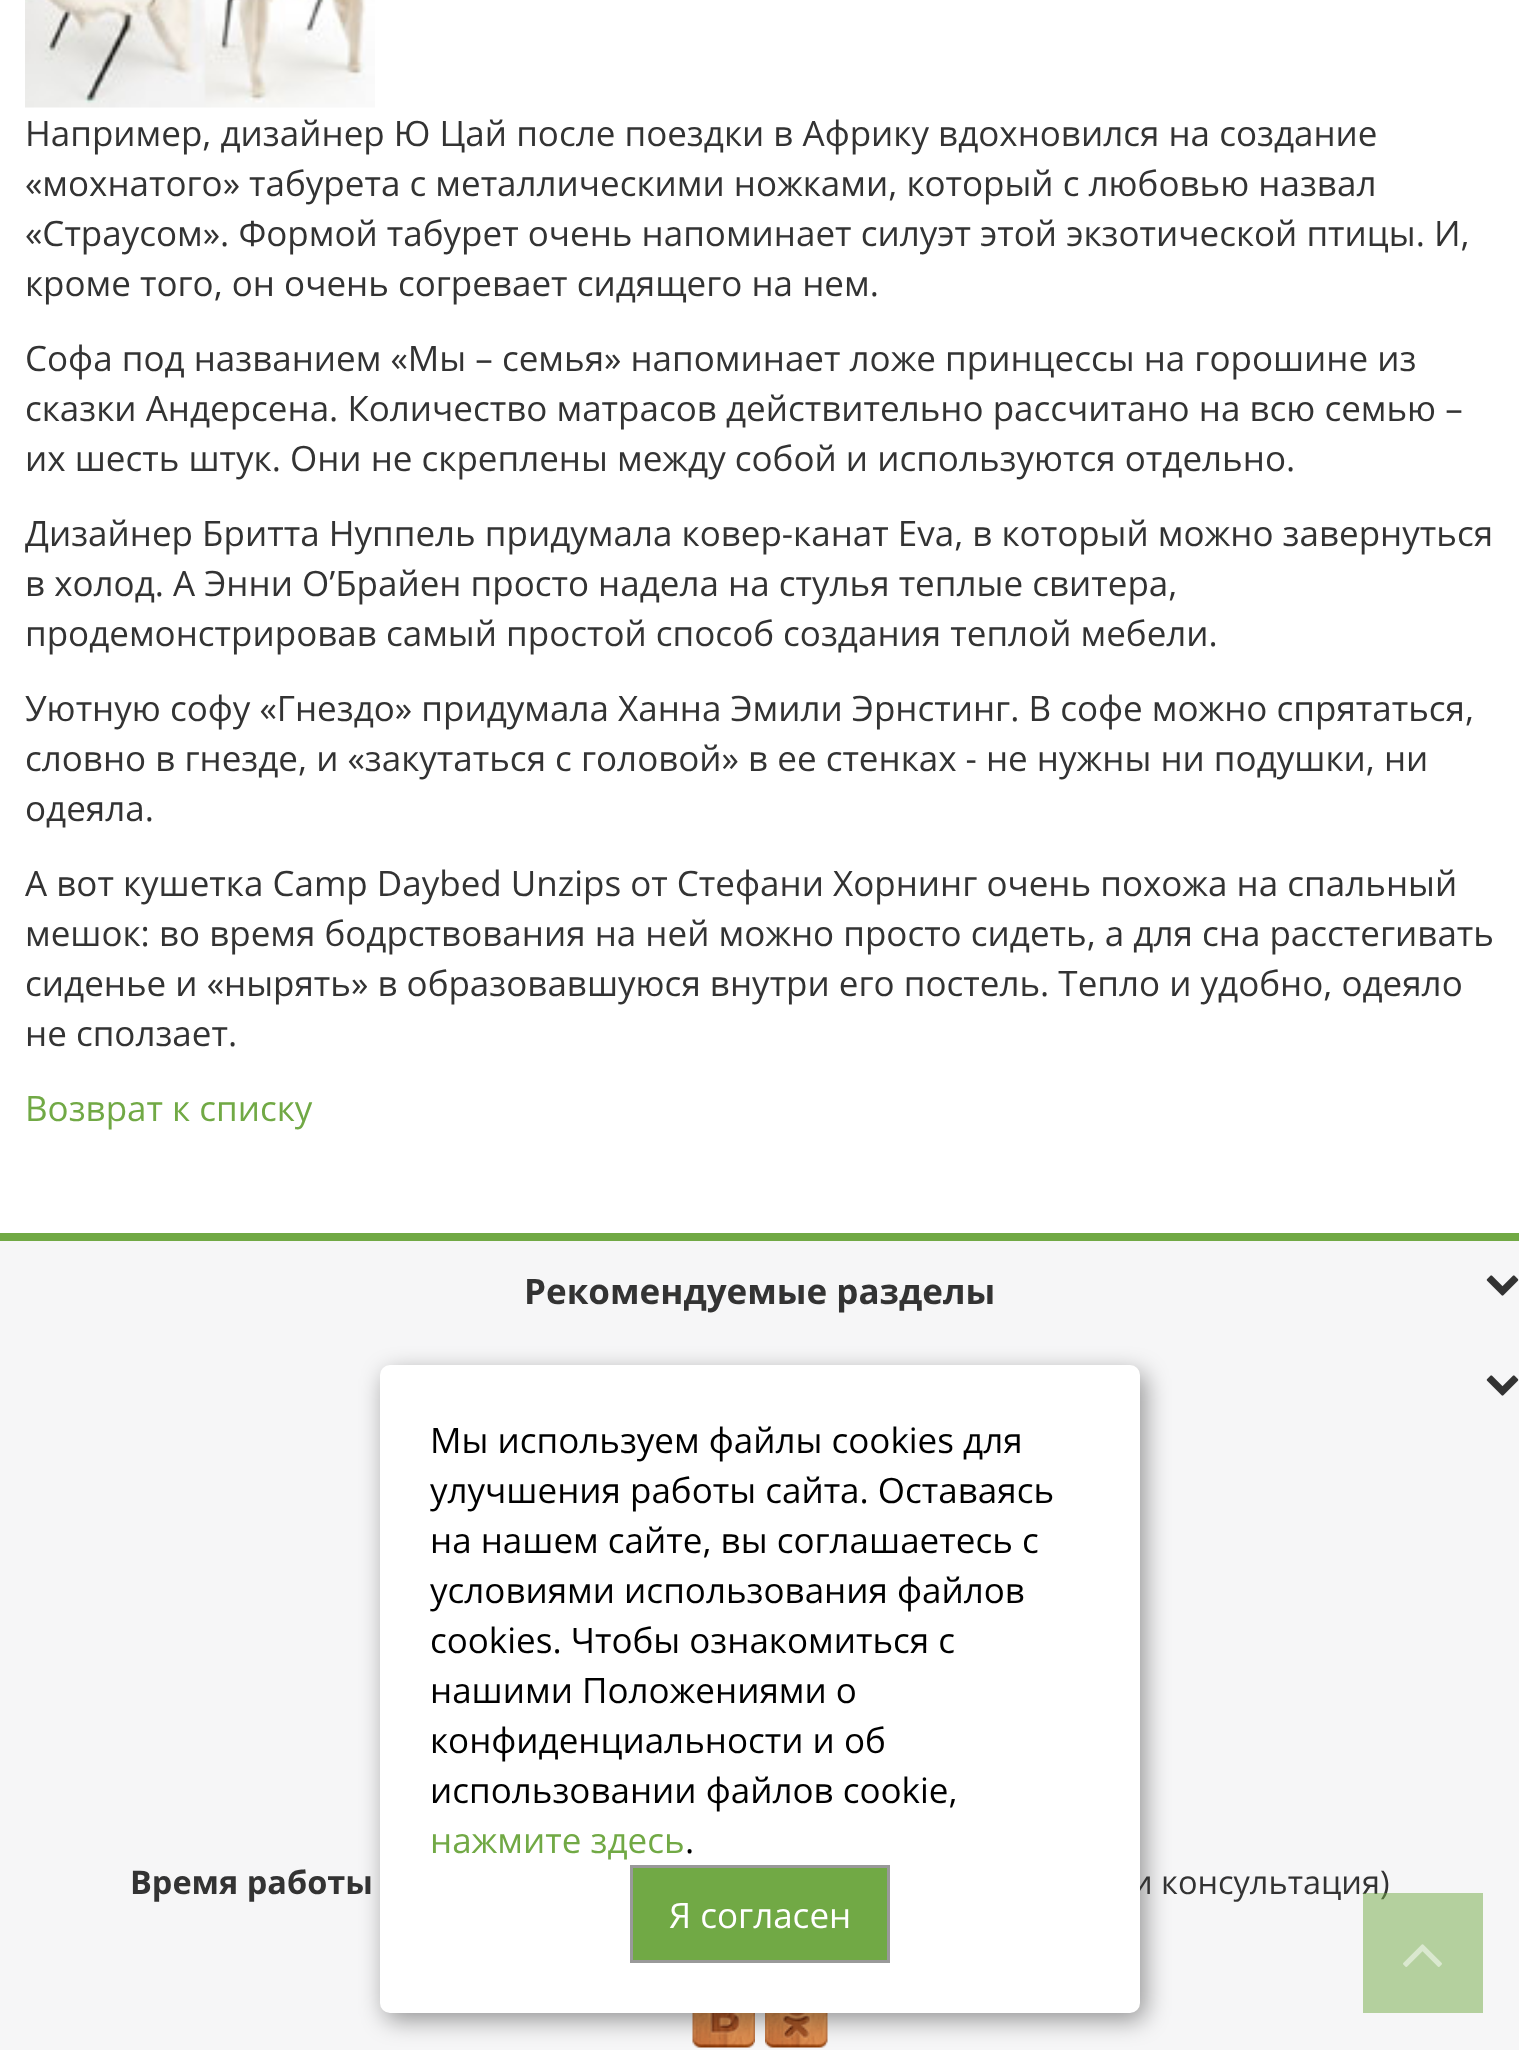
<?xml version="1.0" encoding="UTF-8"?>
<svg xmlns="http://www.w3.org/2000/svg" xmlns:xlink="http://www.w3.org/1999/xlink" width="1519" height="2050">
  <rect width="100%" height="100%" fill="#ffffff" />
  <image x="25" y="0" width="350" height="108" xlink:href="image1.png" />
  <rect y="1241" width="1519" height="809" fill="#f6f6f7" />
  <rect y="1233" width="1519" height="8" fill="#71a945" />
  <image x="1486" y="1275" width="33" height="21" xlink:href="image2.png" />
  <image x="1486" y="1375" width="33" height="21" xlink:href="image2.png" />
  <image x="692" y="2013" width="63" height="35" xlink:href="image3.png" />
  <image x="765" y="2013" width="63" height="35" xlink:href="image4.png" />
  <rect x="385" y="1373" width="760" height="647" rx="10" fill="#000000" fill-opacity="0.4" filter="blur(12.5px)" />
  <text x="25" y="146" style="font-family: Open Sans; font-size: 35px; fill: #333333">Например, дизайнер Ю Цай после поездки в Африку вдохновился на создание</text>
  <text x="25" y="196" style="font-family: Open Sans; font-size: 35px; fill: #333333">«мохнатого» табурета с металлическими ножками, который с любовью назвал</text>
  <text x="25" y="246" style="font-family: Open Sans; font-size: 35px; fill: #333333">«Страусом». Формой табурет очень напоминает силуэт этой экзотической птицы. И,</text>
  <text x="25" y="296" style="font-family: Open Sans; font-size: 35px; fill: #333333">кроме того, он очень согревает сидящего на нем.</text>
  <text x="25" y="371" style="font-family: Open Sans; font-size: 35px; fill: #333333">Софа под названием «Мы – семья» напоминает ложе принцессы на горошине из</text>
  <text x="25" y="421" style="font-family: Open Sans; font-size: 35px; fill: #333333">сказки Андерсена. Количество матрасов действительно рассчитано на всю семью –</text>
  <text x="25" y="471" style="font-family: Open Sans; font-size: 35px; fill: #333333">их шесть штук. Они не скреплены между собой и используются отдельно.</text>
  <text x="25" y="546" style="font-family: Open Sans; font-size: 35px; fill: #333333">Дизайнер Бритта Нуппель придумала ковер-канат Eva, в который можно завернуться</text>
  <text x="25" y="596" style="font-family: Open Sans; font-size: 35px; fill: #333333">в холод. А Энни О’Брайен просто надела на стулья теплые свитера,</text>
  <text x="25" y="646" style="font-family: Open Sans; font-size: 35px; fill: #333333">продемонстрировав самый простой способ создания теплой мебели.</text>
  <text x="25" y="721" style="font-family: Open Sans; font-size: 35px; fill: #333333">Уютную софу «Гнездо» придумала Ханна Эмили Эрнстинг. В софе можно спрятаться,</text>
  <text x="25" y="771" style="font-family: Open Sans; font-size: 35px; fill: #333333">словно в гнезде, и «закутаться с головой» в ее стенках - не нужны ни подушки, ни</text>
  <text x="25" y="821" style="font-family: Open Sans; font-size: 35px; fill: #333333">одеяла.</text>
  <text x="25" y="896" style="font-family: Open Sans; font-size: 35px; fill: #333333">А вот кушетка Camp Daybed Unzips от Стефани Хорнинг очень похожа на спальный</text>
  <text x="25" y="946" style="font-family: Open Sans; font-size: 35px; fill: #333333">мешок: во время бодрствования на ней можно просто сидеть, а для сна расстегивать</text>
  <text x="25" y="996" style="font-family: Open Sans; font-size: 35px; fill: #333333">сиденье и «нырять» в образовавшуюся внутри его постель. Тепло и удобно, одеяло</text>
  <text x="25" y="1046" style="font-family: Open Sans; font-size: 35px; fill: #333333">не сползает.</text>
  <text x="25" y="1121" style="font-family: Open Sans; font-size: 35px; fill: #71a945">Возврат к списку</text>
  <text x="524" y="1304" style="font-family: Open Sans; font-size: 35px; font-weight: bold; fill: #333333">Рекомендуемые разделы</text>
  <text x="130" y="1894" style="font-family: Open Sans; font-size: 32.5px; font-weight: bold; fill: #333333">Время работы</text>
  <text x="1132" y="1894" style="font-family: Open Sans; font-size: 32.5px; fill: #333333">и консультация)</text>
  <rect x="380" y="1365" width="760" height="648" rx="10" fill="#ffffff" />
  <text x="430" y="1453" style="font-family: Open Sans; font-size: 35px; fill: #000000">Мы используем файлы cookies для</text>
  <text x="430" y="1503" style="font-family: Open Sans; font-size: 35px; fill: #000000">улучшения работы сайта. Оставаясь</text>
  <text x="430" y="1553" style="font-family: Open Sans; font-size: 35px; fill: #000000">на нашем сайте, вы соглашаетесь с</text>
  <text x="430" y="1603" style="font-family: Open Sans; font-size: 35px; fill: #000000">условиями использования файлов</text>
  <text x="430" y="1653" style="font-family: Open Sans; font-size: 35px; fill: #000000">cookies. Чтобы ознакомиться с</text>
  <text x="430" y="1703" style="font-family: Open Sans; font-size: 35px; fill: #000000">нашими Положениями о</text>
  <text x="430" y="1753" style="font-family: Open Sans; font-size: 35px; fill: #000000">конфиденциальности и об</text>
  <text x="430" y="1803" style="font-family: Open Sans; font-size: 35px; fill: #000000">использовании файлов cookie,</text>
  <text x="430" y="1853" style="font-family: Open Sans; font-size: 35px; fill: #71a945">нажмите здесь</text>
  <text x="685" y="1853" style="font-family: Open Sans; font-size: 35px; fill: #000000">.</text>
  <rect x="631.5" y="1866.5" width="257" height="95" fill="#71a945" stroke="#999999" stroke-width="3" />
  <text x="669" y="1928" style="font-family: Open Sans; font-size: 35px; fill: #ffffff">Я согласен</text>
  <rect x="1363" y="1893" width="120" height="120" fill="#71a945" fill-opacity="0.5" />
  <image x="1403" y="1944" width="39" height="23" xlink:href="image5.png" />
</svg>
